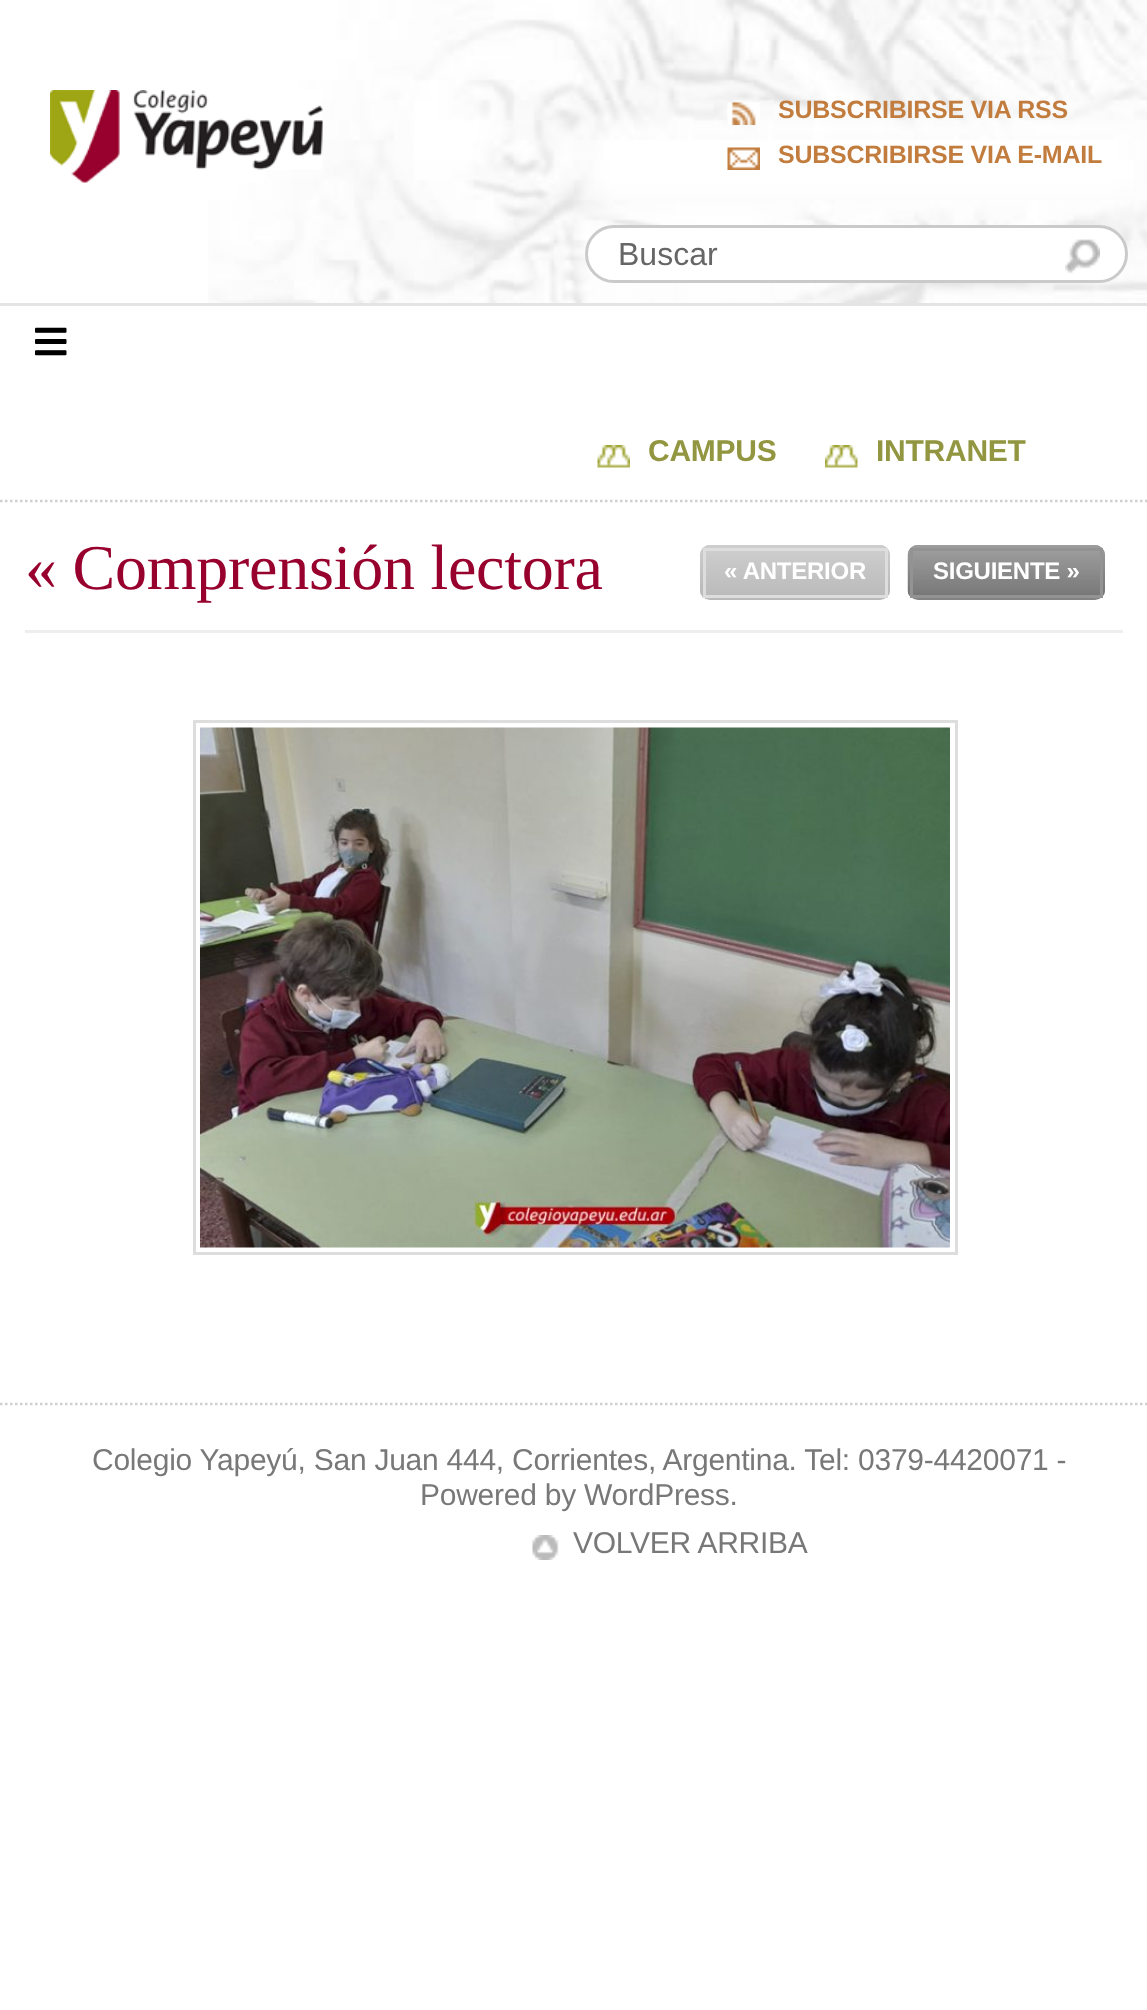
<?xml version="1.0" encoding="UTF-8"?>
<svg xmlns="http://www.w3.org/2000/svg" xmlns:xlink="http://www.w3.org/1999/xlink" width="1147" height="2010">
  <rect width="100%" height="100%" fill="#ffffff" />
  <image x="208" y="0" width="939" height="303" xlink:href="image1.png" />
  <image x="50" y="90" width="273" height="93" xlink:href="image2.png" />
  <image x="727" y="102" width="33" height="23" xlink:href="image3.png" />
  <image x="727" y="147" width="33" height="23" xlink:href="image4.png" />
  <rect x="586.5" y="226.5" width="540" height="55" rx="27.5" fill="#ffffff" stroke="#cacaca" stroke-width="3" />
  <image x="1065" y="239" width="35" height="35" xlink:href="image5.png" />
  <rect y="303" width="1147" height="3" fill="#e4e4e4" />
  <path d="M 0 501 h 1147.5" fill="none" stroke="#d0d0d0" stroke-width="2.5" stroke-dasharray="2.5 2.5" />
  <image x="35" y="327" width="32" height="29" xlink:href="image6.png" />
  <image x="597" y="445" width="33" height="23" xlink:href="image7.png" />
  <image x="825" y="445" width="33" height="23" xlink:href="image8.png" />
  <rect x="25" y="630" width="1098" height="3" fill="#eeeeee" />
  <rect x="700" y="545" width="190" height="55" rx="10" fill="#b9b9b9" />
  <image x="700" y="545" width="190" height="52" xlink:href="image9.png" />
  <image x="702" y="550" width="183" height="48" xlink:href="image10.png" />
  <rect x="704.5" y="549.5" width="182" height="47" fill="none" stroke="#dddddd" stroke-width="3" />
  <rect x="908" y="545" width="197" height="55" rx="10" fill="#838383" />
  <image x="907" y="545" width="198" height="52" xlink:href="image11.png" />
  <image x="913" y="551" width="187" height="44" xlink:href="image12.png" />
  <rect x="911.5" y="549.5" width="190" height="47" fill="none" stroke="#939393" stroke-width="3" />
  <rect x="194.5" y="721.5" width="762" height="532" fill="none" stroke="#dddddd" stroke-width="3" />
  <image x="200" y="727" width="750" height="521" xlink:href="image13.png" />
  <path d="M 0 1404 h 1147.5" fill="none" stroke="#d0d0d0" stroke-width="2.5" stroke-dasharray="2.5 2.5" />
  <image x="532" y="1535" width="27" height="25" xlink:href="image14.png" />
  <text x="778" y="118" style="font-family: Liberation Sans; font-size: 25px; font-weight: bold; letter-spacing: -0.25px; fill: #c27d3e">SUBSCRIBIRSE VIA RSS</text>
  <text x="778" y="163" style="font-family: Liberation Sans; font-size: 25px; font-weight: bold; letter-spacing: -0.25px; fill: #c27d3e">SUBSCRIBIRSE VIA E-MAIL</text>
  <text x="618" y="265" style="font-family: Liberation Sans; font-size: 32px; fill: #666666">Buscar</text>
  <text x="648" y="461" style="font-family: Liberation Sans; font-size: 30px; font-weight: bold; letter-spacing: -0.25px; fill: #929640">CAMPUS</text>
  <text x="876" y="461" style="font-family: Liberation Sans; font-size: 30px; font-weight: bold; letter-spacing: -0.25px; fill: #929640">INTRANET</text>
  <text x="25" y="589" style="font-family: Liberation Serif; font-size: 64px; letter-spacing: -0.25px; fill: #98002d">« Comprensión lectora</text>
  <text x="724" y="579" style="font-family: Liberation Sans; font-size: 24px; font-weight: bold; letter-spacing: -0.25px; fill: #ffffff">« ANTERIOR</text>
  <text x="933" y="579" style="font-family: Liberation Sans; font-size: 24px; font-weight: bold; letter-spacing: -0.25px; fill: #ffffff">SIGUIENTE »</text>
  <text x="92" y="1470" style="font-family: Liberation Sans; font-size: 30px; letter-spacing: -0.25px; fill: #787878">Colegio Yapeyú, San Juan 444, Corrientes, Argentina. Tel: 0379-4420071 -</text>
  <text x="420" y="1505" style="font-family: Liberation Sans; font-size: 30px; letter-spacing: -0.25px; fill: #787878">Powered by WordPress.</text>
  <text x="573" y="1553" style="font-family: Liberation Sans; font-size: 30px; letter-spacing: -0.25px; fill: #787878">VOLVER ARRIBA</text>
</svg>
